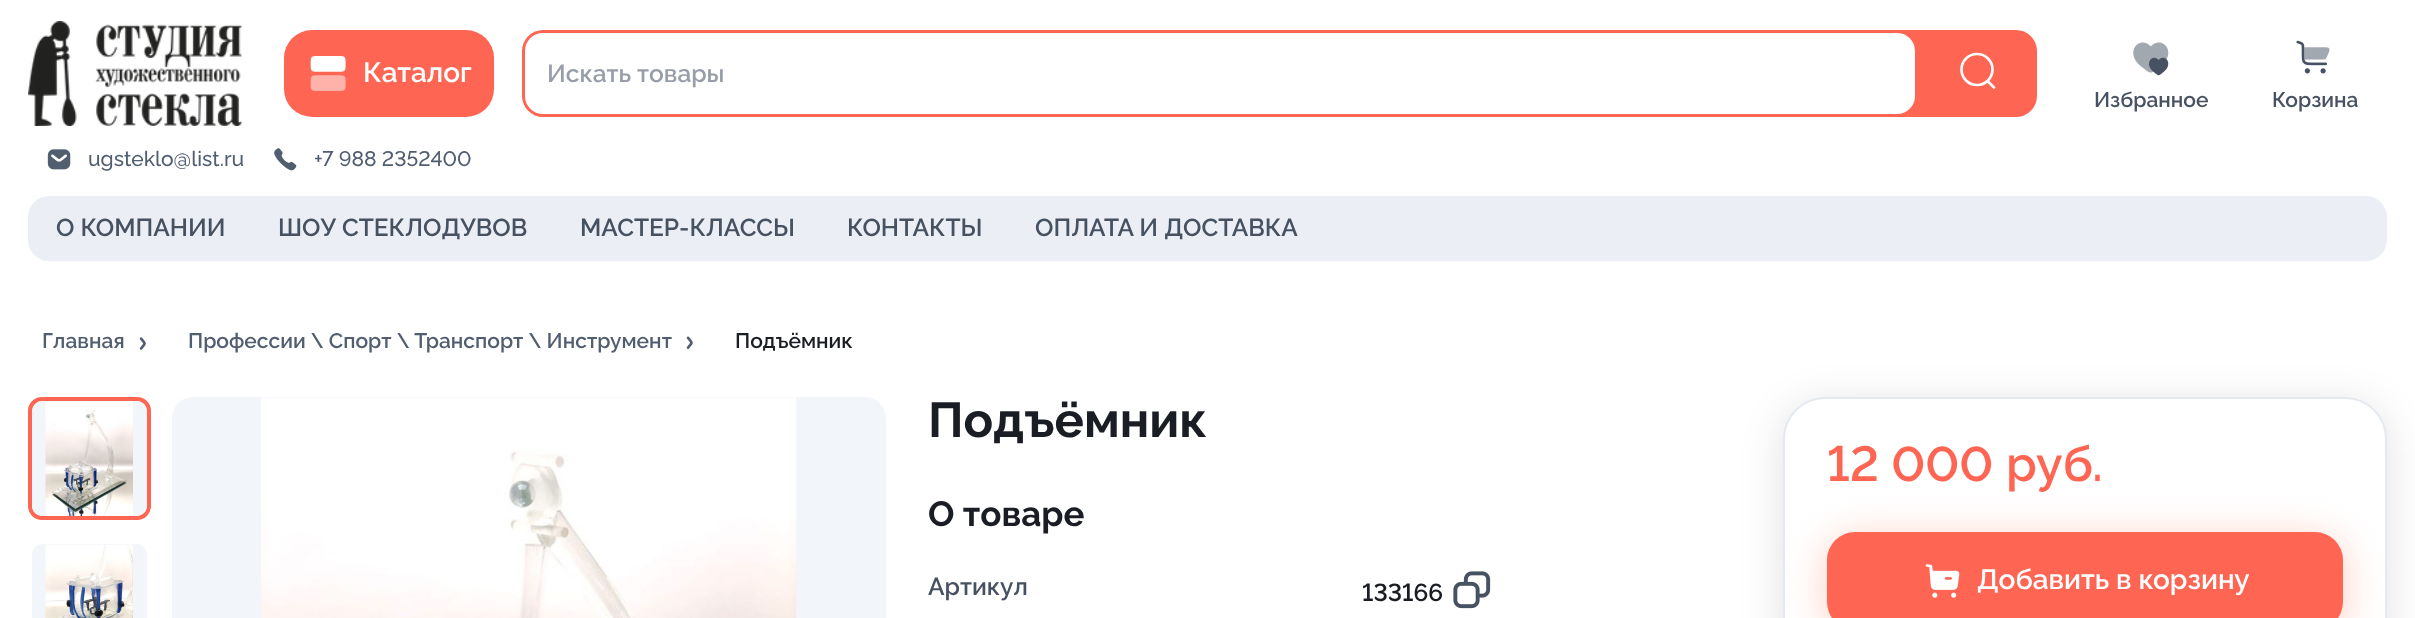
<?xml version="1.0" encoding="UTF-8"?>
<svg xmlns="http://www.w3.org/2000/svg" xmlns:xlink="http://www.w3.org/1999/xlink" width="2415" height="618">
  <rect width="100%" height="100%" fill="#ffffff" />
  <image x="28" y="21" width="214" height="105" xlink:href="image1.png" />
  <rect x="284" y="30" width="210" height="87" rx="28" fill="#ff6553" />
  <image x="310" y="56" width="36" height="35" xlink:href="image2.png" />
  <rect x="522" y="30" width="1515" height="87" rx="21" fill="#ff6553" />
  <rect x="525" y="33" width="1390" height="81" rx="18" fill="#ffffff" />
  <circle cx="1977" cy="69.5" r="15.5" fill="none" stroke="#ffffff" stroke-width="2.6" />
  <path d="M 1988 81.5 l 6 6" fill="none" stroke="#ffffff" stroke-width="2.6" stroke-linecap="round" stroke-linejoin="round" />
  <image x="2133" y="42" width="36" height="34" xlink:href="image3.png" />
  <image x="2296" y="40" width="34" height="34" xlink:href="image4.png" />
  <image x="47" y="149" width="24" height="21" xlink:href="image5.png" />
  <image x="274" y="148" width="23" height="23" xlink:href="image6.png" />
  <rect x="28" y="196" width="2359" height="65" rx="21" fill="#ebeff5" />
  <image x="139" y="337" width="7" height="13" xlink:href="image7.png" />
  <image x="686" y="336" width="7" height="13" xlink:href="image8.png" />
  <rect x="30" y="399" width="119" height="119" rx="12" fill="none" stroke="#ff6553" stroke-width="4" />
  <rect x="32" y="401" width="115" height="115" rx="11" fill="#f2f5fa" />
  <image x="45" y="401" width="88" height="115" xlink:href="image9.png" />
  <rect x="32" y="544" width="115" height="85" rx="11" fill="#f2f5fa" />
  <image x="45" y="544" width="88" height="74" xlink:href="image10.png" />
  <rect x="172" y="397" width="714" height="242" rx="21" fill="#f2f5fa" />
  <image x="261" y="397" width="536" height="221" xlink:href="image11.png" />
  <image x="1453" y="571" width="38" height="38" xlink:href="image12.png" />
  <rect x="1783" y="404" width="604" height="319" rx="42" fill="#000000" fill-opacity="0.12" filter="blur(21px)" />
  <rect x="1784" y="398" width="602" height="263" rx="41" fill="#ffffff" stroke="#e4e9f0" stroke-width="2" />
  <rect x="1827" y="539" width="516" height="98" rx="28" fill="#ffcdc1" filter="blur(21px)" />
  <rect x="1827" y="532" width="516" height="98" rx="28" fill="#ff6553" />
  <image x="1925" y="564" width="35" height="34" xlink:href="image13.png" />
  <text x="363" y="82" style="font-family: Raleway; font-size: 28px; font-weight: 600; fill: #ffffff">Каталог</text>
  <text x="547" y="82" style="font-family: Raleway; font-size: 24.5px; font-weight: 600; fill: #979ea9">Искать товары</text>
  <text x="2094" y="107" style="font-family: Raleway; font-size: 21px; font-weight: 600; fill: #465161">Избранное</text>
  <text x="2272" y="107" style="font-family: Raleway; font-size: 21px; font-weight: 600; fill: #465161">Корзина</text>
  <text x="88" y="166" style="font-family: Raleway; font-size: 21px; font-weight: 500; fill: #515e70">ugsteklo@list.ru</text>
  <text x="314" y="166" style="font-family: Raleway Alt; font-size: 21px; font-weight: 500; fill: #515e70">+7 988 2352400</text>
  <text x="56" y="236" style="font-family: Raleway; font-size: 24.5px; font-weight: 600; fill: #465161">О КОМПАНИИ</text>
  <text x="278" y="236" style="font-family: Raleway; font-size: 24.5px; font-weight: 600; fill: #465161">ШОУ СТЕКЛОДУВОВ</text>
  <text x="580" y="236" style="font-family: Raleway; font-size: 24.5px; font-weight: 600; fill: #465161">МАСТЕР-КЛАССЫ</text>
  <text x="847" y="236" style="font-family: Raleway; font-size: 24.5px; font-weight: 600; fill: #465161">КОНТАКТЫ</text>
  <text x="1035" y="236" style="font-family: Raleway; font-size: 24.5px; font-weight: 600; fill: #465161">ОПЛАТА И ДОСТАВКА</text>
  <text x="42" y="348" style="font-family: Raleway; font-size: 21px; font-weight: 600; fill: #515e70">Главная</text>
  <text x="188" y="348" style="font-family: Raleway; font-size: 21px; font-weight: 600; fill: #515e70">Профессии \ Спорт \ Транспорт \ Инструмент</text>
  <text x="735" y="348" style="font-family: Raleway; font-size: 21px; font-weight: 600; fill: #1a1e24">Подъёмник</text>
  <text x="928" y="437" style="font-family: Raleway; font-size: 49px; font-weight: bold; fill: #1a1e24">Подъёмник</text>
  <text x="928" y="526" style="font-family: Raleway; font-size: 35px; font-weight: bold; fill: #1a1e24">О товаре</text>
  <text x="928" y="595" style="font-family: Raleway; font-size: 24.5px; font-weight: 600; fill: #465161">Артикул</text>
  <text x="1362" y="601" style="font-family: Raleway Alt; font-size: 24.5px; font-weight: 600; fill: #1a1e24">133166</text>
  <text x="1827" y="481" style="font-family: Raleway Alt; font-size: 49px; font-weight: 600; fill: #ff6553">12 000</text>
  <text x="2006" y="481" style="font-family: Raleway; font-size: 49px; font-weight: 600; fill: #ff6553">руб.</text>
  <text x="1977" y="589" style="font-family: Raleway; font-size: 28px; font-weight: 600; fill: #ffffff">Добавить в корзину</text>
</svg>
